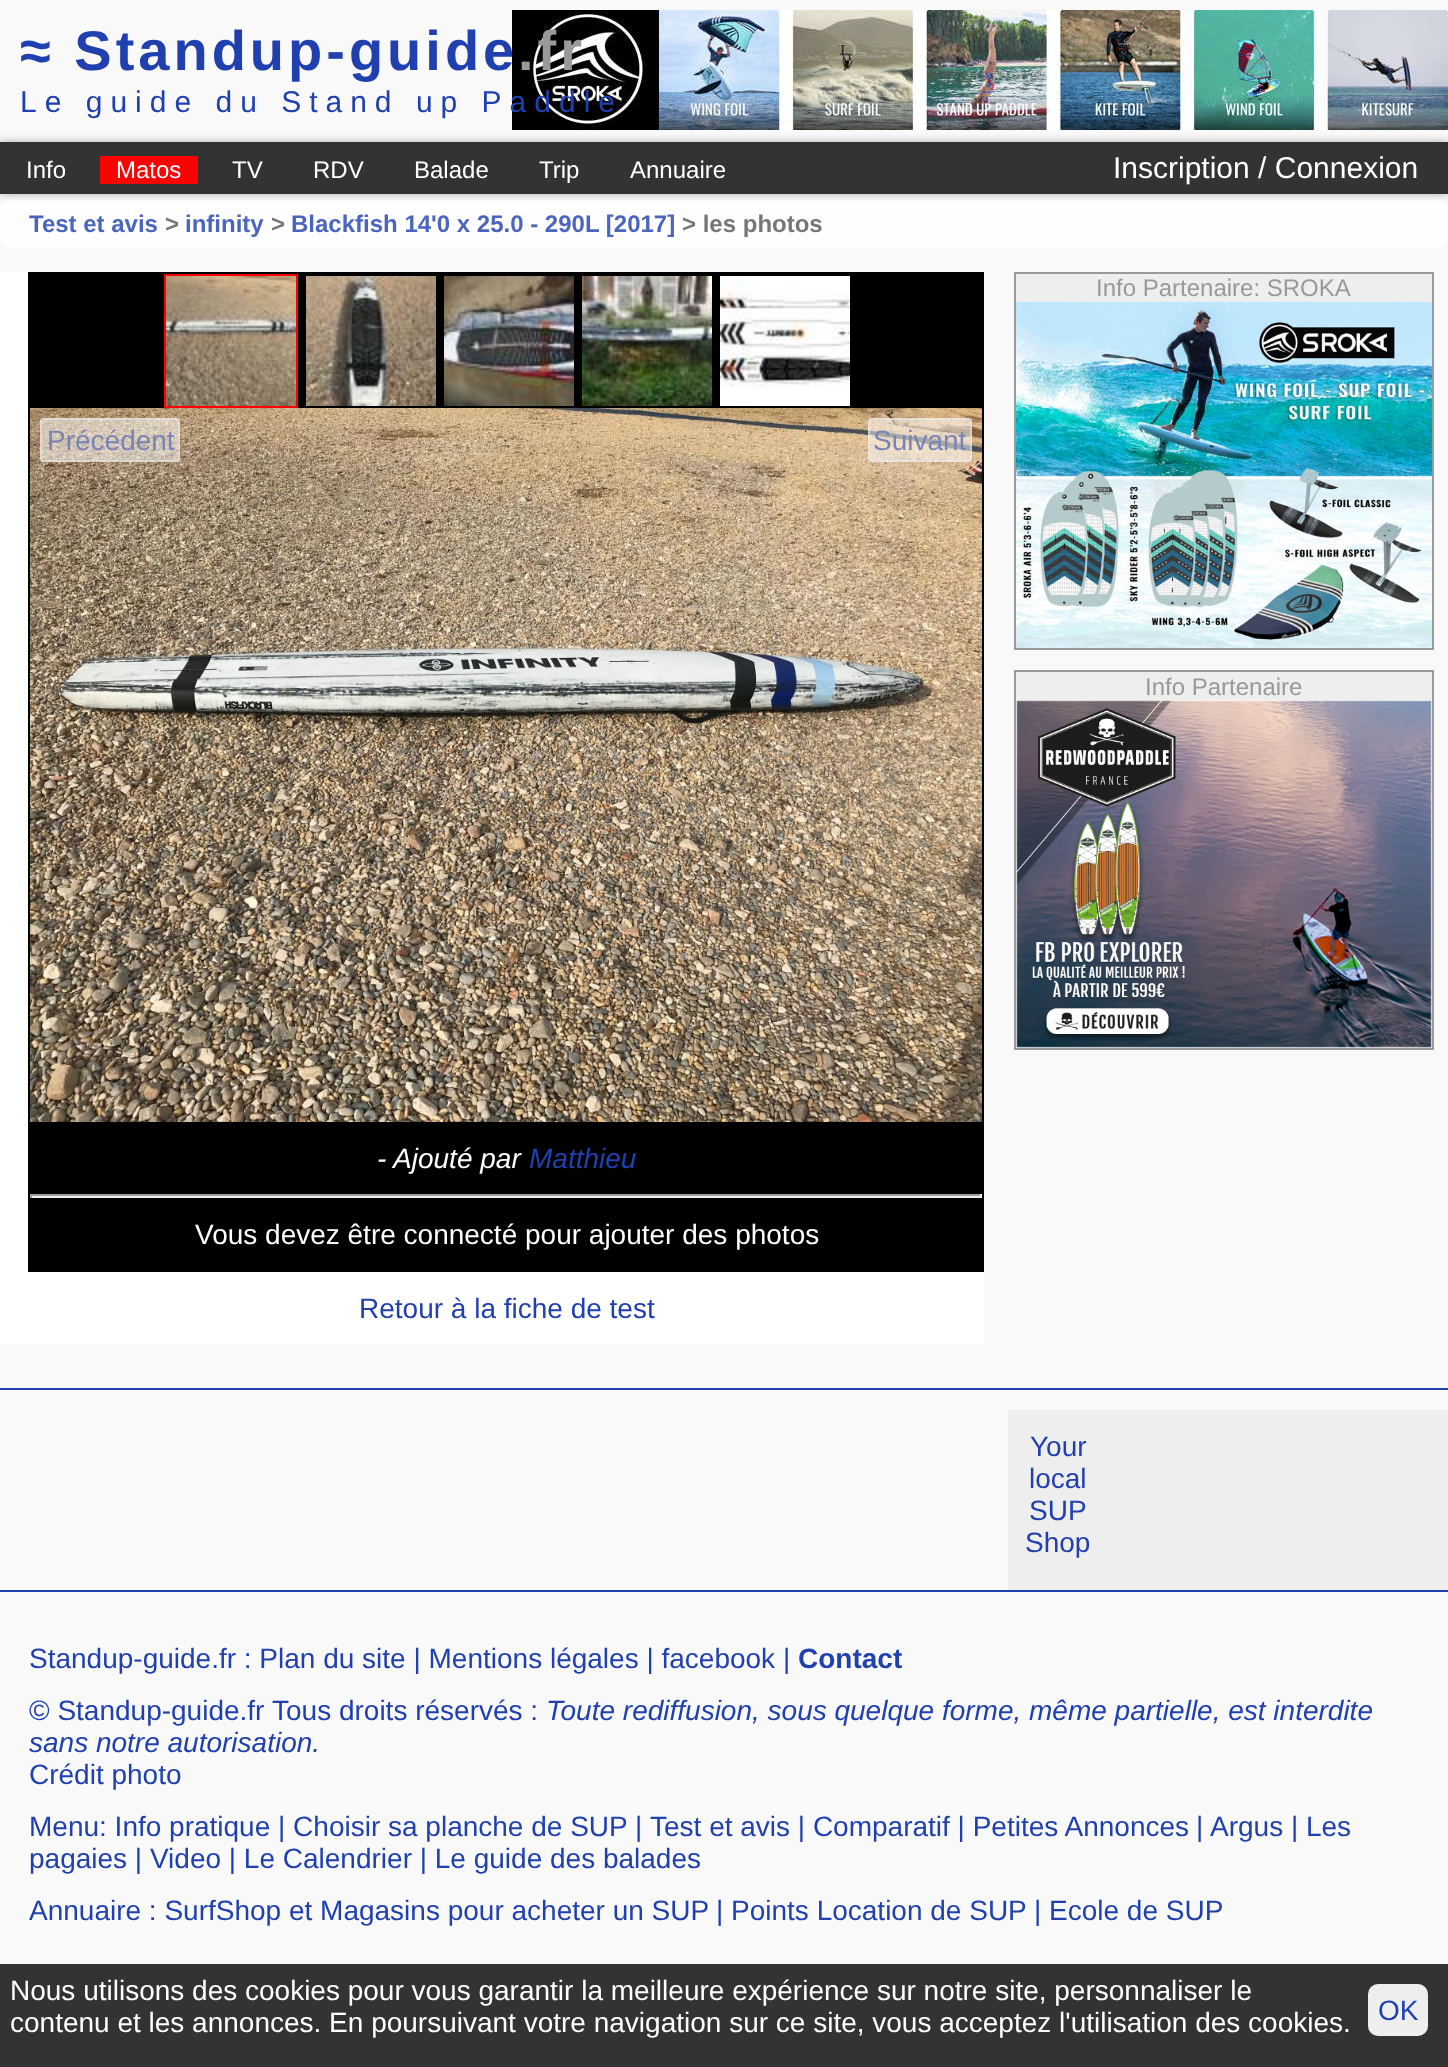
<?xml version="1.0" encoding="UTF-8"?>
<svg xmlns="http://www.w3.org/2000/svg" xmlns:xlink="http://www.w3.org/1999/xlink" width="1448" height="2067">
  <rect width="100%" height="100%" fill="#f9f9f9" />
  <rect y="200" width="1448" height="48" rx="10" fill="#fefefe" />
  <rect y="142" width="1448" height="52" fill="#aaaaaa" filter="blur(4px)" />
  <image x="512" y="10" width="936" height="120" xlink:href="image1.png" />
  <rect y="142" width="1448" height="52" fill="#333333" />
  <rect x="100" y="156" width="98" height="28" fill="#ff0000" />
  <rect y="272" width="984" height="1072" fill="#ffffff" />
  <rect x="28" y="272" width="956" height="1000" fill="#000000" />
  <rect x="165" y="275" width="132" height="132" fill="none" stroke="#ff0000" stroke-width="2" />
  <image x="166" y="276" width="130" height="130" xlink:href="image2.png" />
  <image x="306" y="276" width="130" height="130" xlink:href="image3.png" />
  <image x="444" y="276" width="130" height="130" xlink:href="image4.png" />
  <image x="582" y="276" width="130" height="130" xlink:href="image5.png" />
  <image x="720" y="276" width="130" height="130" xlink:href="image6.png" />
  <image x="30" y="408" width="952" height="714" xlink:href="image7.png" />
  <rect x="40" y="418" width="140" height="44" rx="4" fill="#ffffff" fill-opacity="0.5" />
  <rect x="41" y="419" width="138" height="42" rx="3" fill="none" stroke="#eeeeee" stroke-opacity="0.5" stroke-width="2" />
  <rect x="868" y="418" width="104" height="44" rx="4" fill="#ffffff" fill-opacity="0.5" />
  <rect x="869" y="419" width="102" height="42" rx="3" fill="none" stroke="#eeeeee" stroke-opacity="0.5" stroke-width="2" />
  <rect x="30" y="1194" width="952" height="2" fill="#9f9f9f" />
  <rect x="980" y="1194" width="2" height="4" fill="#eeeeee" />
  <rect x="30" y="1196" width="952" height="2" fill="#eeeeee" />
  <rect x="30" y="1194" width="2" height="4" fill="#9f9f9f" />
  <rect x="1016" y="274" width="416" height="28" fill="#eeeeee" />
  <rect x="1015" y="273" width="418" height="376" fill="none" stroke="#999999" stroke-width="2" />
  <image x="1016" y="302" width="416" height="346" xlink:href="image8.png" />
  <rect x="1016" y="672" width="416" height="28" fill="#eeeeee" />
  <rect x="1015" y="671" width="418" height="378" fill="none" stroke="#999999" stroke-width="2" />
  <image x="1016" y="700" width="416" height="348" xlink:href="image9.png" />
  <rect y="1388" width="1448" height="2" fill="#2040b0" />
  <rect y="1590" width="1448" height="2" fill="#2040b0" />
  <rect x="1008" y="1410" width="440" height="180" fill="#eeeeee" />
  <rect y="1964" width="1448" height="103" fill="#333333" />
  <rect x="1368" y="1984" width="60" height="52" rx="10" fill="#eeeeee" />
  <text x="20" y="70" style="font-family: Liberation Sans; font-size: 56px; font-weight: bold; letter-spacing: 4px; fill: #2040b0">≈ Standup-guide</text>
  <text x="518" y="70" style="font-family: Liberation Sans; font-size: 56px; font-weight: bold; letter-spacing: 4px; fill: #999999">.fr</text>
  <text x="20" y="112" style="font-family: Liberation Sans; font-size: 30px; letter-spacing: 8px; fill: #2040b0">Le guide du Stand up Paddle</text>
  <text x="26" y="178" style="font-family: Liberation Sans; font-size: 24px; fill: #ffffff">Info</text>
  <text x="116" y="178" style="font-family: Liberation Sans; font-size: 24px; fill: #ffffff">Matos</text>
  <text x="232" y="178" style="font-family: Liberation Sans; font-size: 24px; fill: #ffffff">TV</text>
  <text x="313" y="178" style="font-family: Liberation Sans; font-size: 24px; fill: #ffffff">RDV</text>
  <text x="414" y="178" style="font-family: Liberation Sans; font-size: 24px; fill: #ffffff">Balade</text>
  <text x="539" y="178" style="font-family: Liberation Sans; font-size: 24px; fill: #ffffff">Trip</text>
  <text x="630" y="178" style="font-family: Liberation Sans; font-size: 24px; fill: #ffffff">Annuaire</text>
  <text x="1113" y="178" style="font-family: Liberation Sans; font-size: 30px; fill: #ffffff">Inscription / Connexion</text>
  <text x="29" y="232" style="font-family: Liberation Sans; font-size: 24px; font-weight: bold; fill: #4b65bf">Test et avis</text>
  <text x="165" y="232" style="font-family: Liberation Sans; font-size: 24px; font-weight: bold; fill: #767676">&gt;</text>
  <text x="185" y="232" style="font-family: Liberation Sans; font-size: 24px; font-weight: bold; fill: #4b65bf">infinity</text>
  <text x="271" y="232" style="font-family: Liberation Sans; font-size: 24px; font-weight: bold; fill: #767676">&gt;</text>
  <text x="291" y="232" style="font-family: Liberation Sans; font-size: 24px; font-weight: bold; fill: #4b65bf">Blackfish 14'0 x 25.0 - 290L [2017]</text>
  <text x="682" y="232" style="font-family: Liberation Sans; font-size: 24px; font-weight: bold; fill: #767676">&gt; les photos</text>
  <text x="47" y="450" style="font-family: Liberation Sans; font-size: 28px; fill: #7a84b4">Précédent</text>
  <text x="873" y="450" style="font-family: Liberation Sans; font-size: 28px; fill: #7a84b4">Suivant</text>
  <text x="377" y="1168" style="font-family: Liberation Sans; font-size: 28px; font-style: italic; fill: #ffffff">- Ajouté par</text>
  <text x="529" y="1168" style="font-family: Liberation Sans; font-size: 28px; font-style: italic; fill: #2040b0">Matthieu</text>
  <text x="195" y="1244" style="font-family: Liberation Sans; font-size: 28px; fill: #ffffff">Vous devez être connecté pour ajouter des photos</text>
  <text x="359" y="1318" style="font-family: Liberation Sans; font-size: 28px; fill: #2040b0">Retour à la fiche de test</text>
  <text x="1096" y="296" style="font-family: Liberation Sans; font-size: 24px; fill: #999999">Info Partenaire: SROKA</text>
  <text x="1145" y="695" style="font-family: Liberation Sans; font-size: 24px; fill: #999999">Info Partenaire</text>
  <text x="1030" y="1456" style="font-family: Liberation Sans; font-size: 28px; fill: #2040b0">Your</text>
  <text x="1029" y="1488" style="font-family: Liberation Sans; font-size: 28px; fill: #2040b0">local</text>
  <text x="1029" y="1520" style="font-family: Liberation Sans; font-size: 28px; fill: #2040b0">SUP</text>
  <text x="1025" y="1552" style="font-family: Liberation Sans; font-size: 28px; fill: #2040b0">Shop</text>
  <text x="29" y="1668" style="font-family: Liberation Sans; font-size: 28px; fill: #2040b0">Standup-guide.fr : Plan du site | Mentions légales | facebook |</text>
  <text x="798" y="1668" style="font-family: Liberation Sans; font-size: 28px; font-weight: bold; fill: #2040b0">Contact</text>
  <text x="29" y="1720" style="font-family: Liberation Sans; font-size: 28px; fill: #2040b0">© Standup-guide.fr</text>
  <text x="272" y="1720" style="font-family: Liberation Sans; font-size: 28px; fill: #2040b0">Tous droits réservés :</text>
  <text x="546" y="1720" style="font-family: Liberation Sans; font-size: 28px; font-style: italic; fill: #2040b0">Toute rediffusion, sous quelque forme, même partielle, est interdite</text>
  <text x="29" y="1752" style="font-family: Liberation Sans; font-size: 28px; font-style: italic; fill: #2040b0">sans notre autorisation.</text>
  <text x="29" y="1784" style="font-family: Liberation Sans; font-size: 28px; fill: #2040b0">Crédit photo</text>
  <text x="29" y="1836" style="font-family: Liberation Sans; font-size: 28px; fill: #2040b0">Menu: Info pratique | Choisir sa planche de SUP</text>
  <text x="635" y="1836" style="font-family: Liberation Sans; font-size: 28px; fill: #2040b0">|</text>
  <text x="650" y="1836" style="font-family: Liberation Sans; font-size: 28px; fill: #2040b0">Test et avis | Comparatif | Petites Annonces</text>
  <text x="1196" y="1836" style="font-family: Liberation Sans; font-size: 28px; fill: #2040b0">|</text>
  <text x="1210" y="1836" style="font-family: Liberation Sans; font-size: 28px; fill: #2040b0">Argus | Les</text>
  <text x="29" y="1868" style="font-family: Liberation Sans; font-size: 28px; fill: #2040b0">pagaies | Video | Le Calendrier | Le guide des balades</text>
  <text x="29" y="1920" style="font-family: Liberation Sans; font-size: 28px; fill: #2040b0">Annuaire : SurfShop et Magasins pour acheter un SUP</text>
  <text x="716" y="1920" style="font-family: Liberation Sans; font-size: 28px; fill: #2040b0">| Points Location de SUP</text>
  <text x="1034" y="1920" style="font-family: Liberation Sans; font-size: 28px; fill: #2040b0">| Ecole de SUP</text>
  <text x="10" y="2000" style="font-family: Liberation Sans; font-size: 28px; fill: #ffffff">Nous utilisons des cookies pour vous garantir la meilleure expérience sur notre site, personnaliser le</text>
  <text x="10" y="2032" style="font-family: Liberation Sans; font-size: 28px; fill: #ffffff">contenu et les annonces. En poursuivant votre navigation sur ce site, vous acceptez l'utilisation des cookies.</text>
  <text x="1378" y="2020" style="font-family: Liberation Sans; font-size: 28px; fill: #2040b0">OK</text>
</svg>
